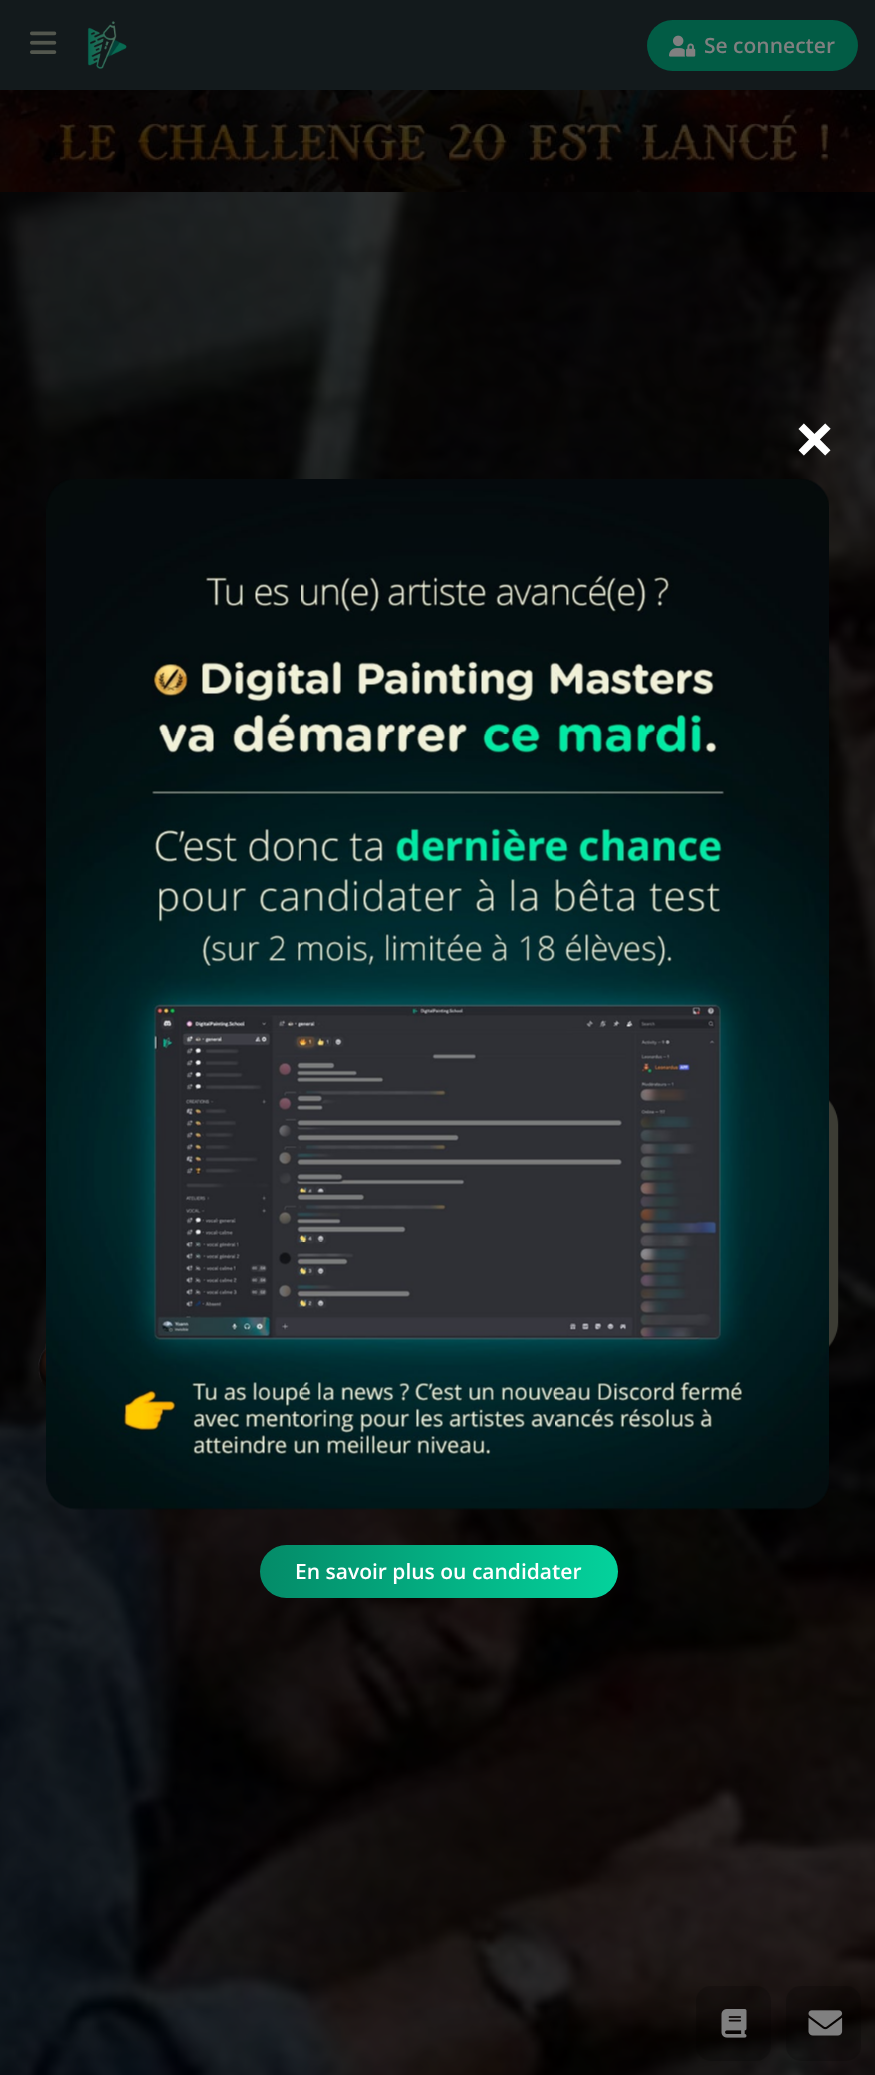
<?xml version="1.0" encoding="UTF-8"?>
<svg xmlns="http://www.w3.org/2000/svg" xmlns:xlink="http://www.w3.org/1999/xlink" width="875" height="2075">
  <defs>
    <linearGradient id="g1" gradientUnits="userSpaceOnUse" x1="260" y1="1571" x2="618" y2="1571"><stop offset="0" stop-color="#048b68" /><stop offset="1" stop-color="#04d29c" /></linearGradient>
  </defs>
  <rect width="100%" height="100%" fill="#ffffff" />
  <rect width="875" height="90" fill="#131a1c" />
  <image x="30" y="31" width="27" height="23" xlink:href="image1.png" />
  <image x="87" y="21" width="40" height="48" xlink:href="image2.png" />
  <rect x="647" y="20" width="211" height="51" rx="25.5" fill="#025c45" />
  <image x="669" y="35" width="27" height="22" xlink:href="image3.png" />
  <image x="0" y="90" width="875" height="102" xlink:href="image4.png" />
  <image x="0" y="192" width="875" height="1883" xlink:href="image5.png" />
  <image x="38" y="1100" width="801" height="292" xlink:href="image6.png" />
  <image x="46" y="479" width="783" height="1031" xlink:href="image7.png" />
  <rect x="260" y="1545" width="358" height="53" rx="26.5" fill="url(#g1)" />
  <rect x="696" y="1986" width="75" height="75" rx="15" fill="#000000" fill-opacity="0.2" />
  <image x="721" y="2009" width="26" height="29" xlink:href="image8.png" />
  <rect x="786" y="1986" width="75" height="75" rx="15" fill="#000000" fill-opacity="0.2" />
  <image x="808" y="2010" width="35" height="26" xlink:href="image9.png" />
  <text x="704" y="53" style="font-family: Open Sans; font-size: 21px; font-weight: 600; fill: #808080">Se connecter</text>
  <text x="794" y="465" style="font-family: Open Sans; font-size: 72px; font-weight: bold; fill: #ffffff">×</text>
  <text x="295" y="1579" style="font-family: Open Sans; font-size: 21px; font-weight: 600; fill: #ffffff">En savoir plus ou candidater</text>
</svg>
